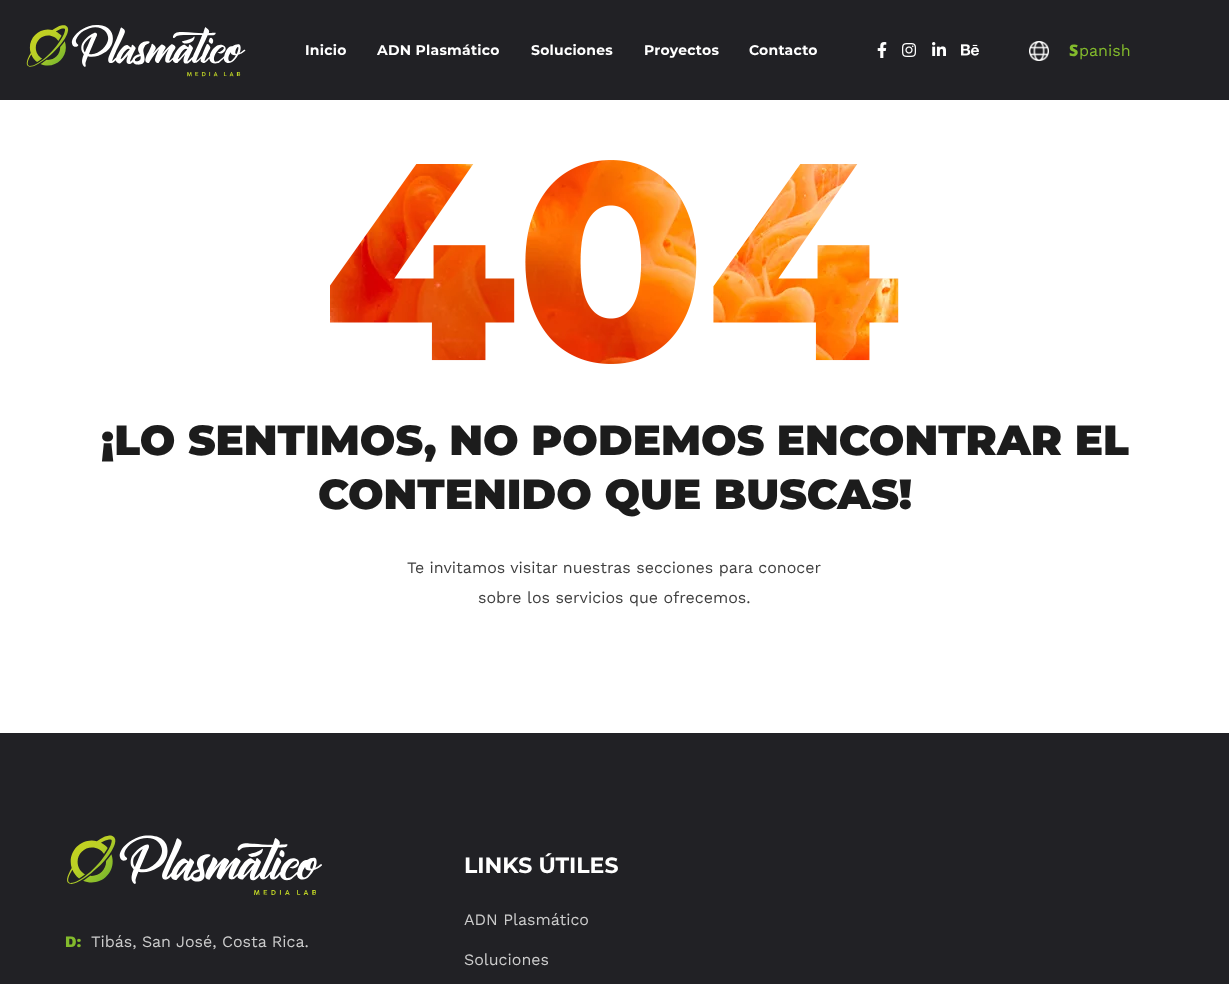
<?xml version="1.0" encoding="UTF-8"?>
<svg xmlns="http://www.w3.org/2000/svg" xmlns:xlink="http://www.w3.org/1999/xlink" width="1229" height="984">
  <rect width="100%" height="100%" fill="#ffffff" />
  <rect width="1229" height="100" fill="#212125" />
  <image x="26" y="25" width="220" height="52" xlink:href="image1.png" />
  <image x="877" y="42" width="10" height="16" xlink:href="image2.png" />
  <image x="902" y="43" width="14" height="14" xlink:href="image3.png" />
  <image x="932" y="42" width="14" height="14" xlink:href="image4.png" />
  <image x="961" y="44" width="18" height="12" xlink:href="image5.png" />
  <image x="1029" y="41" width="20" height="20" xlink:href="image6.png" />
  <image x="330" y="160" width="569" height="204" xlink:href="image7.png" />
  <rect y="733" width="1229" height="251" fill="#212125" />
  <image x="67" y="835" width="255" height="60" xlink:href="image8.png" />
  <text x="305" y="55" style="font-family: Montserrat; font-size: 14px; font-weight: bold; letter-spacing: 0.25px; fill: #ffffff">Inicio</text>
  <text x="377" y="55" style="font-family: Montserrat; font-size: 14px; font-weight: bold; letter-spacing: 0.25px; fill: #ffffff">ADN Plasmático</text>
  <text x="531" y="55" style="font-family: Montserrat; font-size: 14px; font-weight: bold; letter-spacing: 0.25px; fill: #ffffff">Soluciones</text>
  <text x="644" y="55" style="font-family: Montserrat; font-size: 14px; font-weight: bold; letter-spacing: 0.25px; fill: #ffffff">Proyectos</text>
  <text x="749" y="55" style="font-family: Montserrat; font-size: 14px; font-weight: bold; letter-spacing: 0.25px; fill: #ffffff">Contacto</text>
  <text x="1069" y="56" style="font-family: Noto Sans; font-size: 16px; font-weight: 900; fill: #83bb2c">S</text>
  <text x="1079" y="56" style="font-family: Work Sans; font-size: 16px; fill: #83bb2c">panish</text>
  <text x="101" y="455" style="font-family: Montserrat; font-size: 42px; font-weight: 900; fill: #1c1c1c">¡LO SENTIMOS, NO PODEMOS ENCONTRAR EL</text>
  <text x="318" y="509" style="font-family: Montserrat; font-size: 42px; font-weight: 900; fill: #1c1c1c">CONTENIDO QUE BUSCAS!</text>
  <text x="407" y="573" style="font-family: Work Sans; font-size: 16px; fill: #404040">Te invitamos visitar nuestras secciones para conocer</text>
  <text x="478" y="603" style="font-family: Work Sans; font-size: 16px; fill: #404040">sobre los servicios que ofrecemos.</text>
  <text x="65" y="947" style="font-family: Work Sans; font-size: 16px; font-weight: 800; fill: #83bb2c">D:</text>
  <text x="91" y="947" style="font-family: Work Sans; font-size: 16px; fill: #cccccc">Tibás, San José, Costa Rica.</text>
  <text x="464" y="873" style="font-family: Montserrat; font-size: 22px; font-weight: bold; fill: #ffffff">LINKS ÚTILES</text>
  <text x="464" y="925" style="font-family: Work Sans; font-size: 16px; fill: #cccccc">ADN Plasmático</text>
  <text x="464" y="965" style="font-family: Work Sans; font-size: 16px; fill: #cccccc">Soluciones</text>
</svg>
